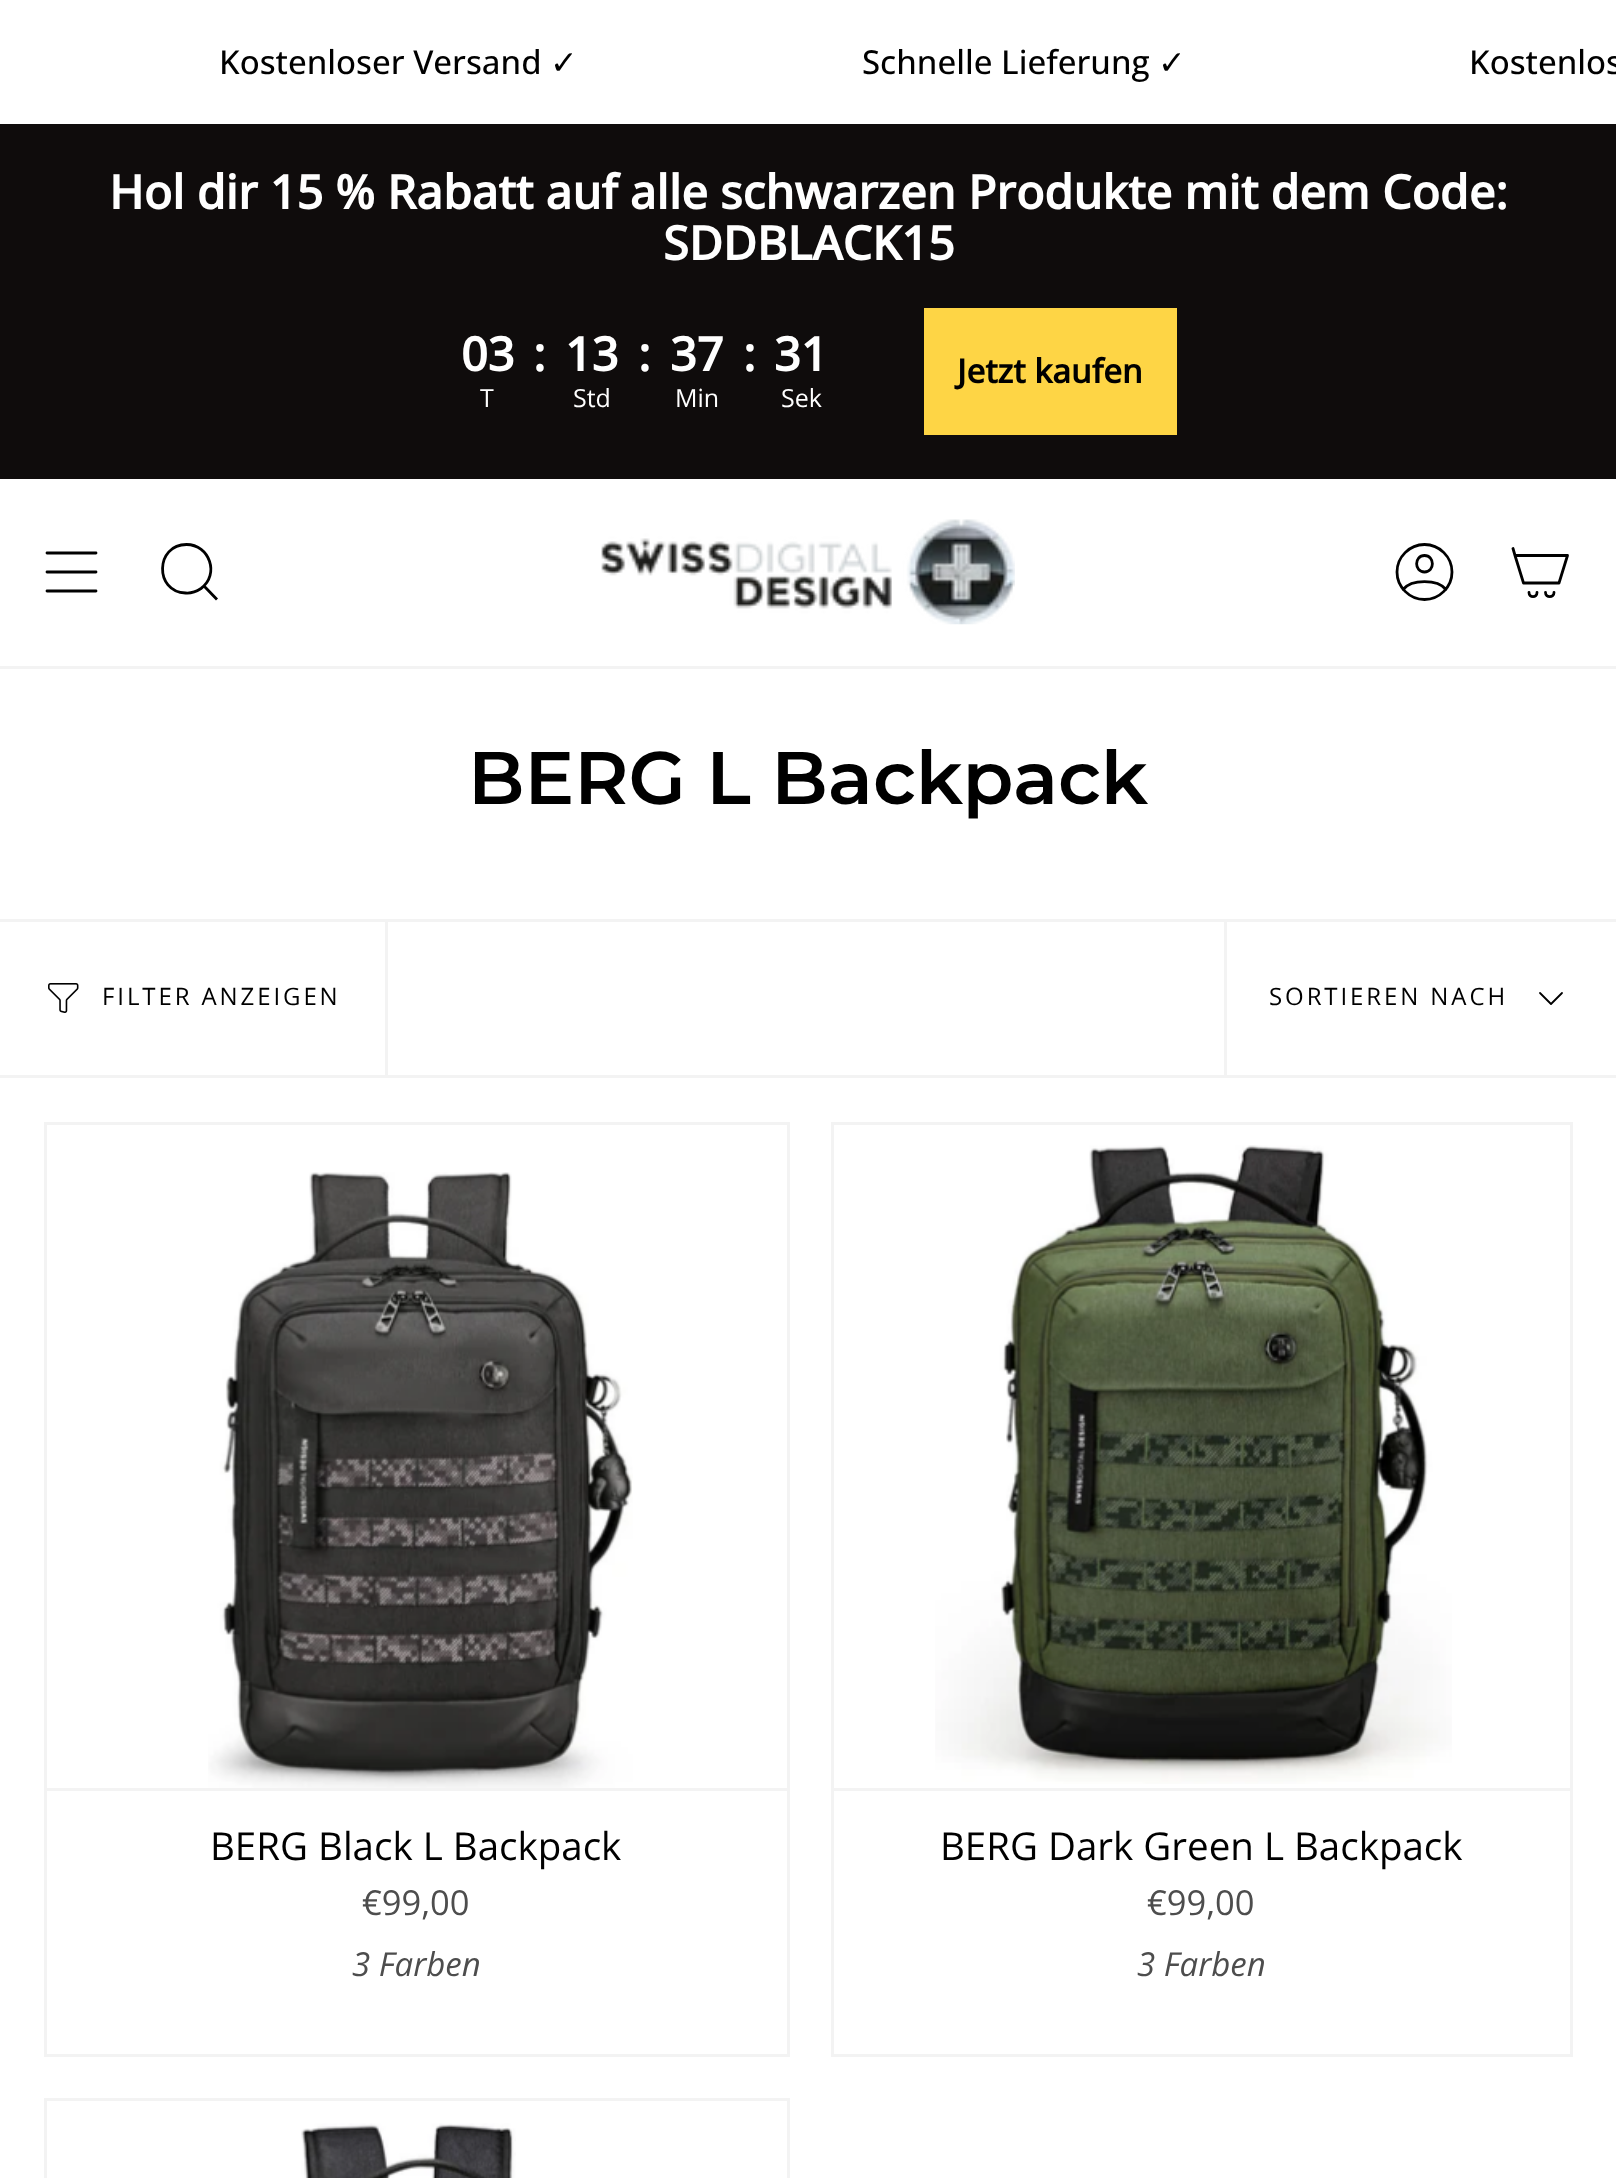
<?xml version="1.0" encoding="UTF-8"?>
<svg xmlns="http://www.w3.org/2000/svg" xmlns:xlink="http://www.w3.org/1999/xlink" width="1616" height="2178">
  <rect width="100%" height="100%" fill="#ffffff" />
  <rect y="124" width="1616" height="355" fill="#0f0c0c" />
  <rect x="924" y="308" width="253" height="127" fill="#fed545" />
  <rect y="666" width="1616" height="3" fill="#f3f3f3" />
  <path d="M 47 553 h 49 m -49 19 h 49 m -49 19 h 49" fill="none" stroke="#000000" stroke-width="2.8" stroke-linecap="round" stroke-linejoin="round" />
  <path d="M 186.5 544.5 c 23 0 33.5 30 14.5 44 c -4.5 3 -10 5 -15.5 4.5 c -31.5 -1.5 -30 -48.5 1 -48.5 z m 17.5 41.5 l 13 13.5" fill="none" stroke="#000000" stroke-width="2.8" />
  <image x="601" y="519" width="414" height="106" xlink:href="image1.png" />
  <path d="M 1424.5 544.5 c -15 0 -27.5 12.5 -27.5 27.5 c 0 15 12.5 27.5 27.5 27.5 c 15 0 27.5 -12.5 27.5 -27.5 c 0 -15 -12.5 -27.5 -27.5 -27.5 z m -21.5 45 c 8.5 -10.5 34.5 -10.5 43 0 m -21.5 -17.5 c 10.5 0 10.5 -16.5 0 -16.5 c -10.5 0 -10.5 16.5 0 16.5 z" fill="none" stroke="#000000" stroke-width="2.8" stroke-linecap="round" stroke-linejoin="round" />
  <path d="M 1515 555.5 h 52.5 l -8.5 27.5 h -35.5 z m 0 0 l -2 -7 m 24 44 c 0 5.5 -8 5.5 -8 0 m 25 0 c 0 5.5 -8.5 5.5 -8.5 0" fill="none" stroke="#000000" stroke-width="2.8" stroke-linecap="round" stroke-linejoin="round" />
  <rect y="919" width="1616" height="3" fill="#f3f3f3" />
  <rect y="1075" width="1616" height="3" fill="#f3f3f3" />
  <rect x="385" y="921" width="3" height="154" fill="#f3f3f3" />
  <image x="48" y="983" width="31" height="30" xlink:href="image2.png" />
  <rect x="1224" y="921" width="3" height="154" fill="#f3f3f3" />
  <path d="M 1540 993 l 11 11 l 11 -11" fill="none" stroke="#000000" stroke-width="1.8" stroke-linecap="round" stroke-linejoin="round" />
  <rect x="47" y="1122" width="742" height="3" fill="#f3f3f3" />
  <rect x="787" y="1122" width="3" height="935" fill="#f3f3f3" />
  <rect x="47" y="2054" width="742" height="3" fill="#f3f3f3" />
  <rect x="44" y="1122" width="3" height="935" fill="#f3f3f3" />
  <rect x="47" y="1788" width="740" height="3" fill="#f3f3f3" />
  <image x="208" y="1172" width="425" height="616" xlink:href="image3.png" />
  <rect x="833" y="1122" width="740" height="3" fill="#f3f3f3" />
  <rect x="1570" y="1122" width="3" height="935" fill="#f3f3f3" />
  <rect x="833" y="2054" width="740" height="3" fill="#f3f3f3" />
  <rect x="833" y="1788" width="737" height="3" fill="#f3f3f3" />
  <rect x="831" y="1122" width="3" height="935" fill="#f3f3f3" />
  <image x="935" y="1145" width="517" height="639" xlink:href="image4.png" />
  <rect x="47" y="2098" width="742" height="3" fill="#f3f3f3" />
  <rect x="787" y="2098" width="3" height="80" fill="#f3f3f3" />
  <rect x="44" y="2098" width="3" height="80" fill="#f3f3f3" />
  <image x="301" y="2123" width="215" height="55" xlink:href="image5.png" />
  <text x="219" y="74" style="font-family: Open Sans; font-size: 33px; font-weight: 500; fill: #000000">Kostenloser Versand</text>
  <text x="550" y="74" style="font-family: DejaVu Sans; font-size: 33px; fill: #000000">✓</text>
  <text x="862" y="74" style="font-family: Open Sans; font-size: 33px; font-weight: 500; fill: #000000">Schnelle Lieferung</text>
  <text x="1158" y="74" style="font-family: DejaVu Sans; font-size: 33px; fill: #000000">✓</text>
  <text x="1469" y="74" style="font-family: Open Sans; font-size: 33px; font-weight: 500; fill: #000000">Kostenlos</text>
  <text x="109" y="209" style="font-family: Open Sans; font-size: 46.75px; font-weight: bold; fill: #ffffff">Hol dir 15 % Rabatt auf alle schwarzen Produkte mit dem Code:</text>
  <text x="663" y="260" style="font-family: Open Sans; font-size: 46.75px; font-weight: bold; fill: #ffffff">SDDBLACK15</text>
  <text x="461" y="371" style="font-family: Open Sans; font-size: 46.75px; font-weight: bold; fill: #ffffff">03</text>
  <text x="480" y="407" style="font-family: Open Sans; font-size: 25px; fill: #ffffff">T</text>
  <text x="533" y="371" style="font-family: Open Sans; font-size: 46.75px; font-weight: bold; fill: #ffffff">:</text>
  <text x="565" y="371" style="font-family: Open Sans; font-size: 46.75px; font-weight: bold; fill: #ffffff">13</text>
  <text x="573" y="407" style="font-family: Open Sans; font-size: 25px; fill: #ffffff">Std</text>
  <text x="638" y="371" style="font-family: Open Sans; font-size: 46.75px; font-weight: bold; fill: #ffffff">:</text>
  <text x="670" y="371" style="font-family: Open Sans; font-size: 46.75px; font-weight: bold; fill: #ffffff">37</text>
  <text x="675" y="407" style="font-family: Open Sans; font-size: 25px; fill: #ffffff">Min</text>
  <text x="743" y="371" style="font-family: Open Sans; font-size: 46.75px; font-weight: bold; fill: #ffffff">:</text>
  <text x="774" y="371" style="font-family: Open Sans; font-size: 46.75px; font-weight: bold; fill: #ffffff">31</text>
  <text x="781" y="407" style="font-family: Open Sans; font-size: 25px; fill: #ffffff">Sek</text>
  <text x="957" y="383" style="font-family: Open Sans; font-size: 33px; font-weight: bold; fill: #000000">Jetzt kaufen</text>
  <text x="468" y="804" style="font-family: Montserrat; font-size: 74.25px; font-weight: 600; fill: #000000">BERG L Backpack</text>
  <text x="102" y="1005" style="font-family: Open Sans; font-size: 24px; letter-spacing: 2.9px; fill: #000000">FILTER ANZEIGEN</text>
  <text x="1269" y="1005" style="font-family: Open Sans; font-size: 24px; letter-spacing: 2.9px; fill: #000000">SORTIEREN NACH</text>
  <text x="210" y="1860" style="font-family: Open Sans; font-size: 38.5px; fill: #000000">BERG Black L Backpack</text>
  <text x="362" y="1915" style="font-family: Open Sans; font-size: 34.5px; fill: #4d4d4d">€99,00</text>
  <text x="352" y="1976" style="font-family: Open Sans; font-size: 33px; font-style: italic; fill: #4d4d4d">3 Farben</text>
  <text x="940" y="1860" style="font-family: Open Sans; font-size: 38.5px; fill: #000000">BERG Dark Green L Backpack</text>
  <text x="1147" y="1915" style="font-family: Open Sans; font-size: 34.5px; fill: #4d4d4d">€99,00</text>
  <text x="1137" y="1976" style="font-family: Open Sans; font-size: 33px; font-style: italic; fill: #4d4d4d">3 Farben</text>
</svg>
